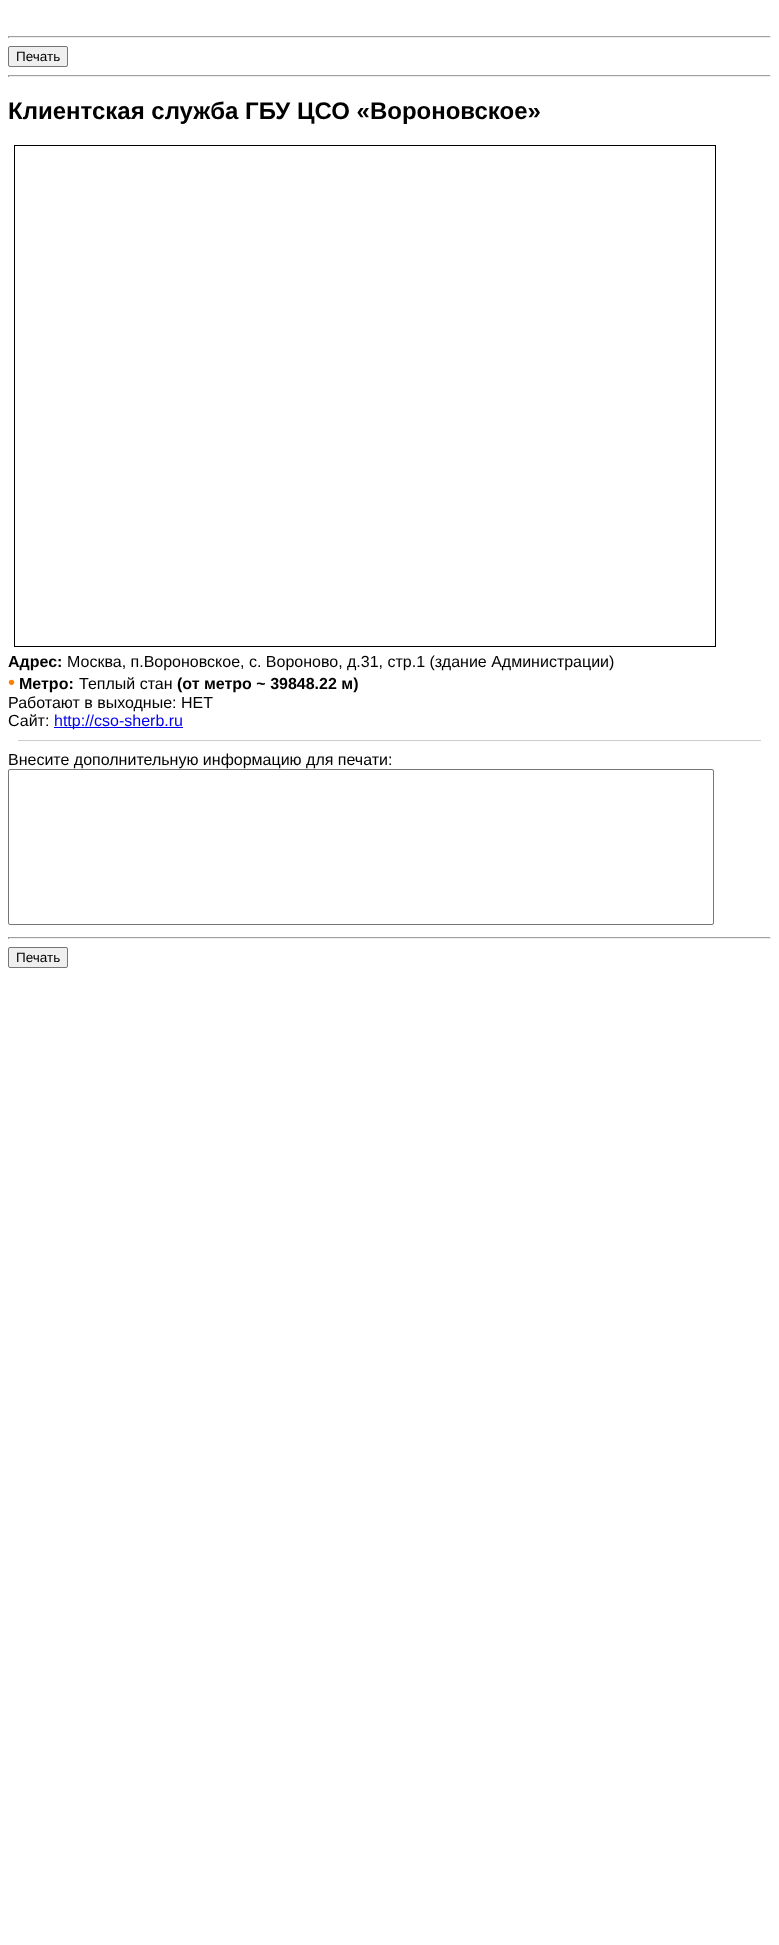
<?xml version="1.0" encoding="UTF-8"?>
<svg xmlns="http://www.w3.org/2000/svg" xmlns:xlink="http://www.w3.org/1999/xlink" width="779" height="1945">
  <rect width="100%" height="100%" fill="#ffffff" />
  <rect x="8" y="36" width="763" height="1" fill="#9f9f9f" />
  <rect x="770" y="36" width="1" height="2" fill="#eeeeee" />
  <rect x="8" y="37" width="763" height="1" fill="#eeeeee" />
  <rect x="8" y="36" width="1" height="2" fill="#9f9f9f" />
  <rect x="8.5" y="46.5" width="59" height="20" rx="1.5" fill="#efefef" stroke="#767676" />
  <rect x="8" y="75" width="763" height="1" fill="#9f9f9f" />
  <rect x="770" y="75" width="1" height="2" fill="#eeeeee" />
  <rect x="8" y="76" width="763" height="1" fill="#eeeeee" />
  <rect x="8" y="75" width="1" height="2" fill="#9f9f9f" />
  <rect x="14.5" y="145.5" width="701" height="501" fill="none" stroke="#000000" />
  <rect x="54" y="727" width="129" height="1" fill="#0000ee" />
  <rect x="18" y="740" width="743" height="1" fill="#cccccc" />
  <rect x="8.5" y="769.5" width="705" height="155" rx="1.5" fill="none" stroke="#767676" />
  <rect x="8" y="937" width="763" height="1" fill="#9f9f9f" />
  <rect x="770" y="937" width="1" height="2" fill="#eeeeee" />
  <rect x="8" y="938" width="763" height="1" fill="#eeeeee" />
  <rect x="8" y="937" width="1" height="2" fill="#9f9f9f" />
  <rect x="8.5" y="947.5" width="59" height="20" rx="1.5" fill="#efefef" stroke="#767676" />
  <text x="16" y="61" style="font-family: Liberation Sans; font-size: 13.5px; fill: #000000">Печать</text>
  <text x="8" y="119" style="font-family: Liberation Sans; font-size: 24px; font-weight: bold; fill: #000000">Клиентская служба ГБУ ЦСО «Вороновское»</text>
  <text x="8" y="667" style="font-family: Liberation Sans; font-size: 16px; font-weight: bold; fill: #000000">Адрес:</text>
  <text x="67" y="667" style="font-family: Liberation Sans; font-size: 16px; fill: #000000">Москва, п.Вороновское, с. Вороново, д.31, стр.1 (здание Администрации)</text>
  <text x="8" y="689" style="font-family: Liberation Sans; font-size: 20px; fill: #ff7f00">•</text>
  <text x="19" y="689" style="font-family: Liberation Sans; font-size: 16px; font-weight: bold; fill: #000000">Метро:</text>
  <text x="79" y="689" style="font-family: Liberation Sans; font-size: 16px; fill: #000000">Теплый стан</text>
  <text x="177" y="689" style="font-family: Liberation Sans; font-size: 16px; font-weight: bold; fill: #000000">(от метро ~ 39848.22 м)</text>
  <text x="8" y="708" style="font-family: Liberation Sans; font-size: 16px; fill: #000000">Работают в выходные: НЕТ</text>
  <text x="8" y="726" style="font-family: Liberation Sans; font-size: 16px; fill: #000000">Сайт:</text>
  <text x="54" y="726" style="font-family: Liberation Sans; font-size: 16px; fill: #0000ee">http://cso-sherb.ru</text>
  <text x="8" y="765" style="font-family: Liberation Sans; font-size: 16px; fill: #000000">Внесите дополнительную информацию для печати:</text>
  <text x="16" y="962" style="font-family: Liberation Sans; font-size: 13.5px; fill: #000000">Печать</text>
</svg>
